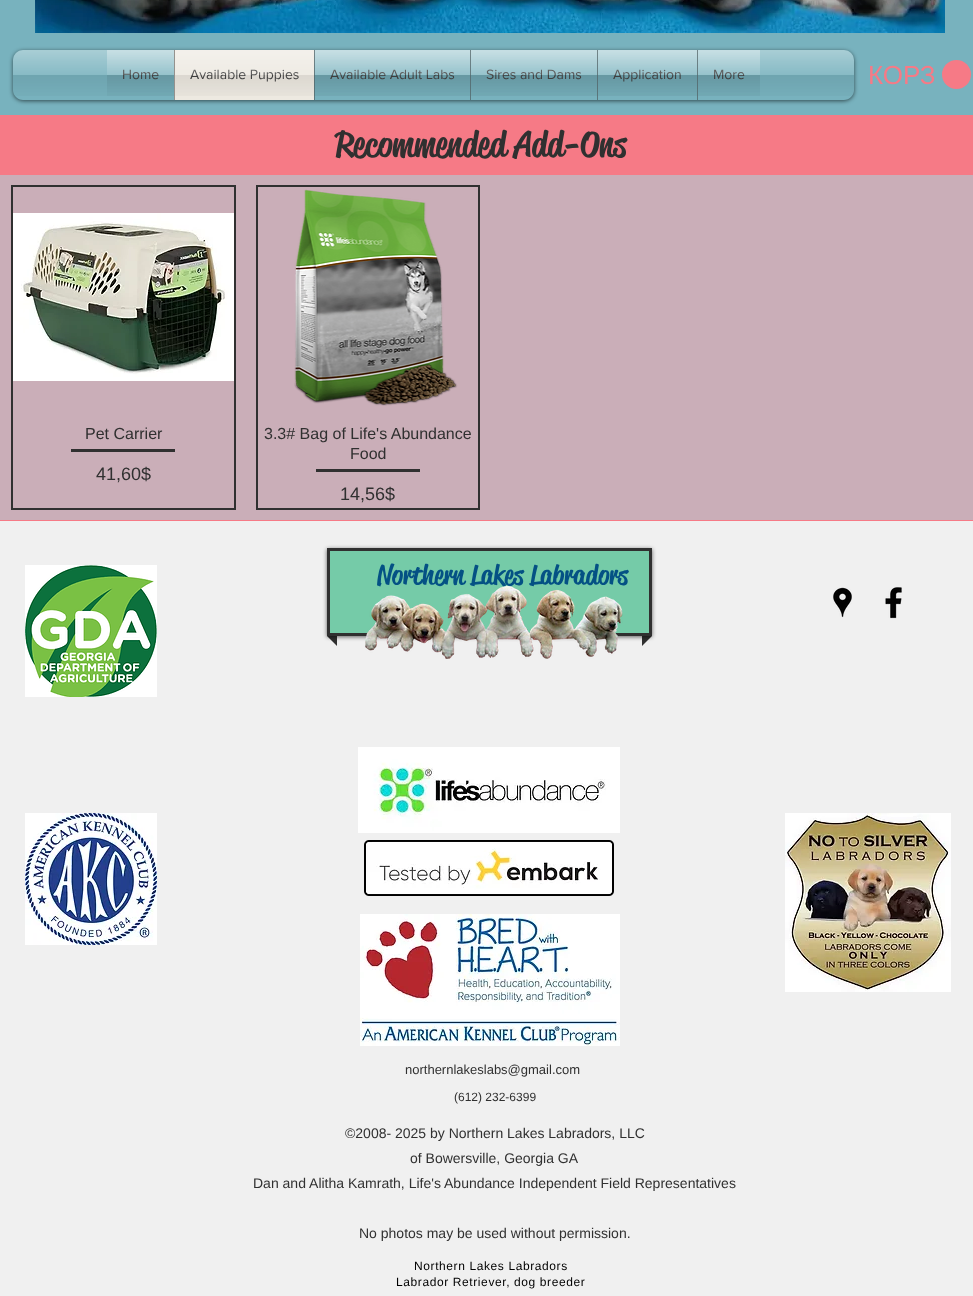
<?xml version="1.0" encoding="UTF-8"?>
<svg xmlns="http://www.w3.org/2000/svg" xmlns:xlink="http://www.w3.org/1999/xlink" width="973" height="1296">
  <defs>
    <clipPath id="clip1"><path d="M 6 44 h 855 v 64 h -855 z m 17 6 h 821 c 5.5 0 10 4.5 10 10 v 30 c 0 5.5 -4.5 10 -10 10 h -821 c -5.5 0 -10 -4.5 -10 -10 v -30 c 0 -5.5 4.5 -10 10 -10 z" clip-rule="evenodd" /></clipPath>
  </defs>
  <rect width="100%" height="100%" fill="#f67a86" />
  <rect width="973" height="36" fill="#78b2be" />
  <image x="35" y="0" width="910" height="33" xlink:href="image1.png" />
  <rect y="36" width="973" height="79" fill="#78b2be" />
  <g clip-path="url(#clip1)">
    <rect x="13" y="51" width="841" height="50" rx="10" fill="#000000" fill-opacity="0.6" filter="blur(2px)" />
  </g>
  <image x="13" y="50" width="841" height="46" xlink:href="image2.png" />
  <rect x="175" y="50" width="139" height="50" fill="#ede9e1" />
  <rect x="174" y="50" width="1" height="50" fill="#94928e" />
  <rect x="314" y="50" width="1" height="50" fill="#414141" fill-opacity="0.52" />
  <rect x="470" y="50" width="1" height="50" fill="#414141" fill-opacity="0.52" />
  <rect x="597" y="50" width="1" height="50" fill="#414141" fill-opacity="0.52" />
  <rect x="697" y="50" width="1" height="50" fill="#414141" fill-opacity="0.52" />
  <circle cx="956.5" cy="74.5" r="14.5" fill="#f67a86" />
  <rect y="175" width="973" height="345" fill="#caaeb8" />
  <rect x="12" y="186" width="223" height="323" fill="none" stroke="#303030" stroke-width="2" />
  <image x="13" y="213" width="221" height="168" xlink:href="image9.png" />
  <rect x="71" y="449" width="104" height="3" fill="#303030" />
  <rect x="257" y="186" width="222" height="323" fill="none" stroke="#303030" stroke-width="2" />
  <image x="294" y="189" width="164" height="217" xlink:href="image10.png" />
  <rect x="316" y="469" width="104" height="3" fill="#303030" />
  <rect y="521" width="973" height="775" fill="#f0f0f0" />
  <image x="25" y="565" width="132" height="132" xlink:href="image11.png" />
  <path d="M 327 636 h 10 v 10 z" fill="#303030" />
  <path d="M 642 636 h 10 l -10 10 z" fill="#303030" />
  <rect x="327" y="549" width="325" height="88" fill="#000000" fill-opacity="0.6" filter="blur(2px)" />
  <rect x="328.5" y="549.5" width="322" height="85" fill="#75cba8" stroke="#303030" stroke-width="3" />
  <image x="833" y="587" width="19" height="31" xlink:href="image13.png" />
  <image x="885" y="587" width="17" height="32" xlink:href="image14.png" />
  <image x="358" y="747" width="262" height="86" xlink:href="image15.png" />
  <image x="25" y="813" width="132" height="132" xlink:href="image16.png" />
  <image x="364" y="840" width="250" height="56" xlink:href="image17.png" />
  <image x="785" y="813" width="166" height="179" xlink:href="image18.png" />
  <image x="360" y="914" width="260" height="132" xlink:href="image19.png" />
  <text x="122" y="79" style="font-family: 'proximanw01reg'; font-size: 14px; fill: #444444">Home</text>
  <image x="107" y="50" width="67" height="46" xlink:href="image3.png" />
  <text x="190" y="79" style="font-family: 'proximanw01reg'; font-size: 14px; fill: #444444">Available Puppies</text>
  <image x="175" y="50" width="139" height="46" xlink:href="image4.png" />
  <text x="330" y="79" style="font-family: 'proximanw01reg'; font-size: 14px; fill: #444444">Available Adult Labs</text>
  <image x="315" y="50" width="155" height="46" xlink:href="image5.png" />
  <text x="486" y="79" style="font-family: 'proximanw01reg'; font-size: 14px; fill: #444444">Sires and Dams</text>
  <image x="471" y="50" width="126" height="46" xlink:href="image6.png" />
  <text x="613" y="79" style="font-family: 'proximanw01reg'; font-size: 14px; fill: #444444">Application</text>
  <image x="598" y="50" width="99" height="46" xlink:href="image7.png" />
  <text x="713" y="79" style="font-family: 'proximanw01reg'; font-size: 14px; fill: #444444">More</text>
  <image x="698" y="50" width="62" height="46" xlink:href="image8.png" />
  <text x="868" y="84" style="font-family: Liberation Sans; font-size: 26px; fill: #f67a86">КОРЗ</text>
  <text x="335" y="156" style="font-family: 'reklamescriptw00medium'; font-size: 35px; font-weight: 500; fill: #303030">Recommended Add-Ons</text>
  <text x="85" y="439" style="font-family: Liberation Sans; font-size: 16px; fill: #303030">Pet Carrier</text>
  <text x="96" y="480" style="font-family: Liberation Sans; font-size: 18px; fill: #303030">41,60$</text>
  <text x="264" y="439" style="font-family: Liberation Sans; font-size: 16px; fill: #303030">3.3# Bag of Life's Abundance</text>
  <text x="350" y="459" style="font-family: Liberation Sans; font-size: 16px; fill: #303030">Food</text>
  <text x="340" y="500" style="font-family: Liberation Sans; font-size: 18px; fill: #303030">14,56$</text>
  <text x="377" y="584" style="font-family: 'reklamescriptw00medium'; font-size: 27px; font-weight: 500; fill: #045184">Northern Lakes Labradors</text>
  <image x="365" y="585" width="258" height="74" xlink:href="image12.png" />
  <text x="405" y="1074" style="font-family: Liberation Sans; font-size: 13px; fill: #303030">northernlakeslabs@gmail.com</text>
  <text x="454" y="1101" style="font-family: Liberation Sans; font-size: 12px; fill: #303030">(612) 232-6399</text>
  <text x="345" y="1138" style="font-family: Liberation Sans; font-size: 14px; fill: #303030">©2008- 2025 by Northern Lakes Labradors, LLC</text>
  <text x="410" y="1163" style="font-family: Liberation Sans; font-size: 14px; fill: #303030">of Bowersville, Georgia GA</text>
  <text x="253" y="1188" style="font-family: Liberation Sans; font-size: 14px; fill: #303030">Dan and Alitha Kamrath, Life's Abundance Independent Field Representatives</text>
  <text x="359" y="1238" style="font-family: Liberation Sans; font-size: 14px; fill: #303030">No photos may be used without permission.</text>
  <text x="414" y="1270" style="font-family: Liberation Sans; font-size: 12px; letter-spacing: 0.6px; fill: #000000">Northern Lakes Labradors</text>
  <text x="396" y="1286" style="font-family: Liberation Sans; font-size: 12px; letter-spacing: 0.6px; fill: #000000">Labrador Retriever, dog breeder</text>
</svg>
